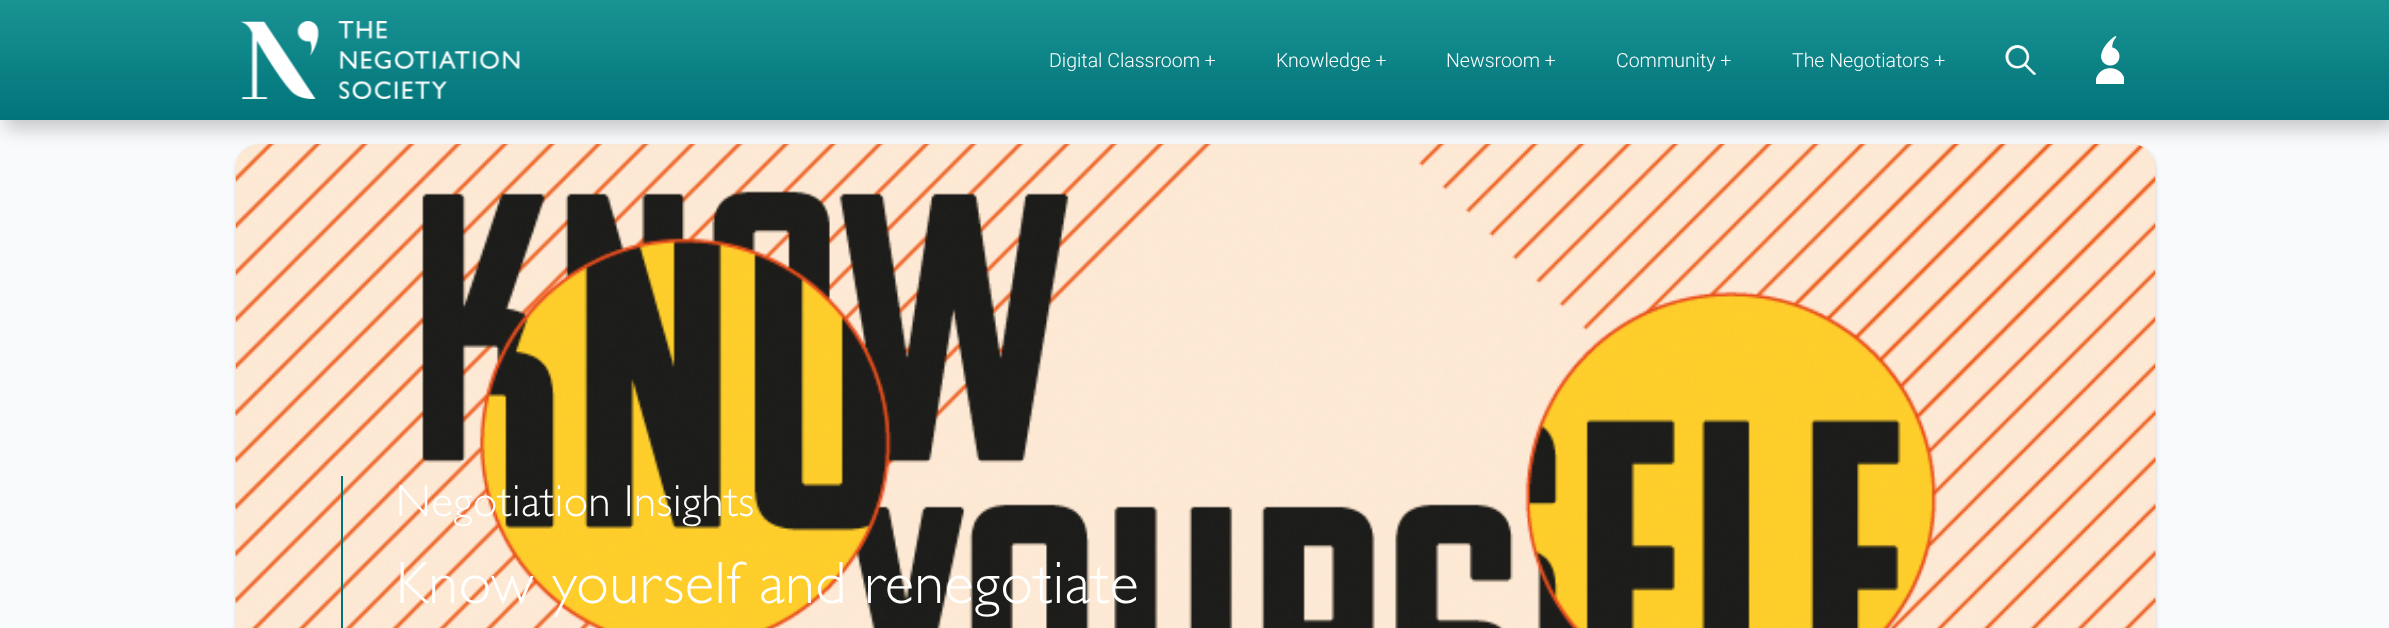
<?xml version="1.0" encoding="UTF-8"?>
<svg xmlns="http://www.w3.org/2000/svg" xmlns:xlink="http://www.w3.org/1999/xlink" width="2389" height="628">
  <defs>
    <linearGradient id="g1" gradientUnits="userSpaceOnUse" x1="1195" y1="0" x2="1195" y2="120"><stop offset="0" stop-color="#1a9393" /><stop offset="1" stop-color="#00747a" /></linearGradient>
  </defs>
  <rect width="100%" height="100%" fill="#f9fafc" />
  <rect x="236" y="146" width="1920" height="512" rx="24" fill="#000000" fill-opacity="0.15" filter="blur(2px)" />
  <image x="235" y="144" width="1921" height="484" xlink:href="image4.png" />
  <rect x="5" y="9" width="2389" height="120" fill="#000000" fill-opacity="0.2" filter="blur(9px)" />
  <rect width="2389" height="120" fill="url(#g1)" />
  <image x="240" y="21" width="280" height="78" xlink:href="image1.png" />
  <image x="2005" y="45" width="31" height="30" xlink:href="image2.png" />
  <image x="2096" y="36" width="28" height="48" xlink:href="image3.png" />
  <rect x="341" y="476" width="2" height="152" fill="#00747a" />
  <text x="1049" y="67" style="font-family: Roboto; font-size: 19.5px; font-weight: 300; fill: #ffffff">Digital Classroom +</text>
  <text x="1276" y="67" style="font-family: Roboto; font-size: 19.5px; font-weight: 300; fill: #ffffff">Knowledge +</text>
  <text x="1446" y="67" style="font-family: Roboto; font-size: 19.5px; font-weight: 300; fill: #ffffff">Newsroom +</text>
  <text x="1616" y="67" style="font-family: Roboto; font-size: 19.5px; font-weight: 300; fill: #ffffff">Community +</text>
  <text x="1792" y="67" style="font-family: Roboto; font-size: 19.5px; font-weight: 300; fill: #ffffff">The Negotiators +</text>
  <text x="396" y="516" style="font-family: Gill Sans; font-size: 45px; font-weight: 300; letter-spacing: 0.5px; fill: #ffffff">Negotiation Insights</text>
  <text x="396" y="603" style="font-family: Gill Sans; font-size: 60px; font-weight: 300; letter-spacing: 0.75px; fill: #ffffff">Know yourself and renegotiate</text>
</svg>
